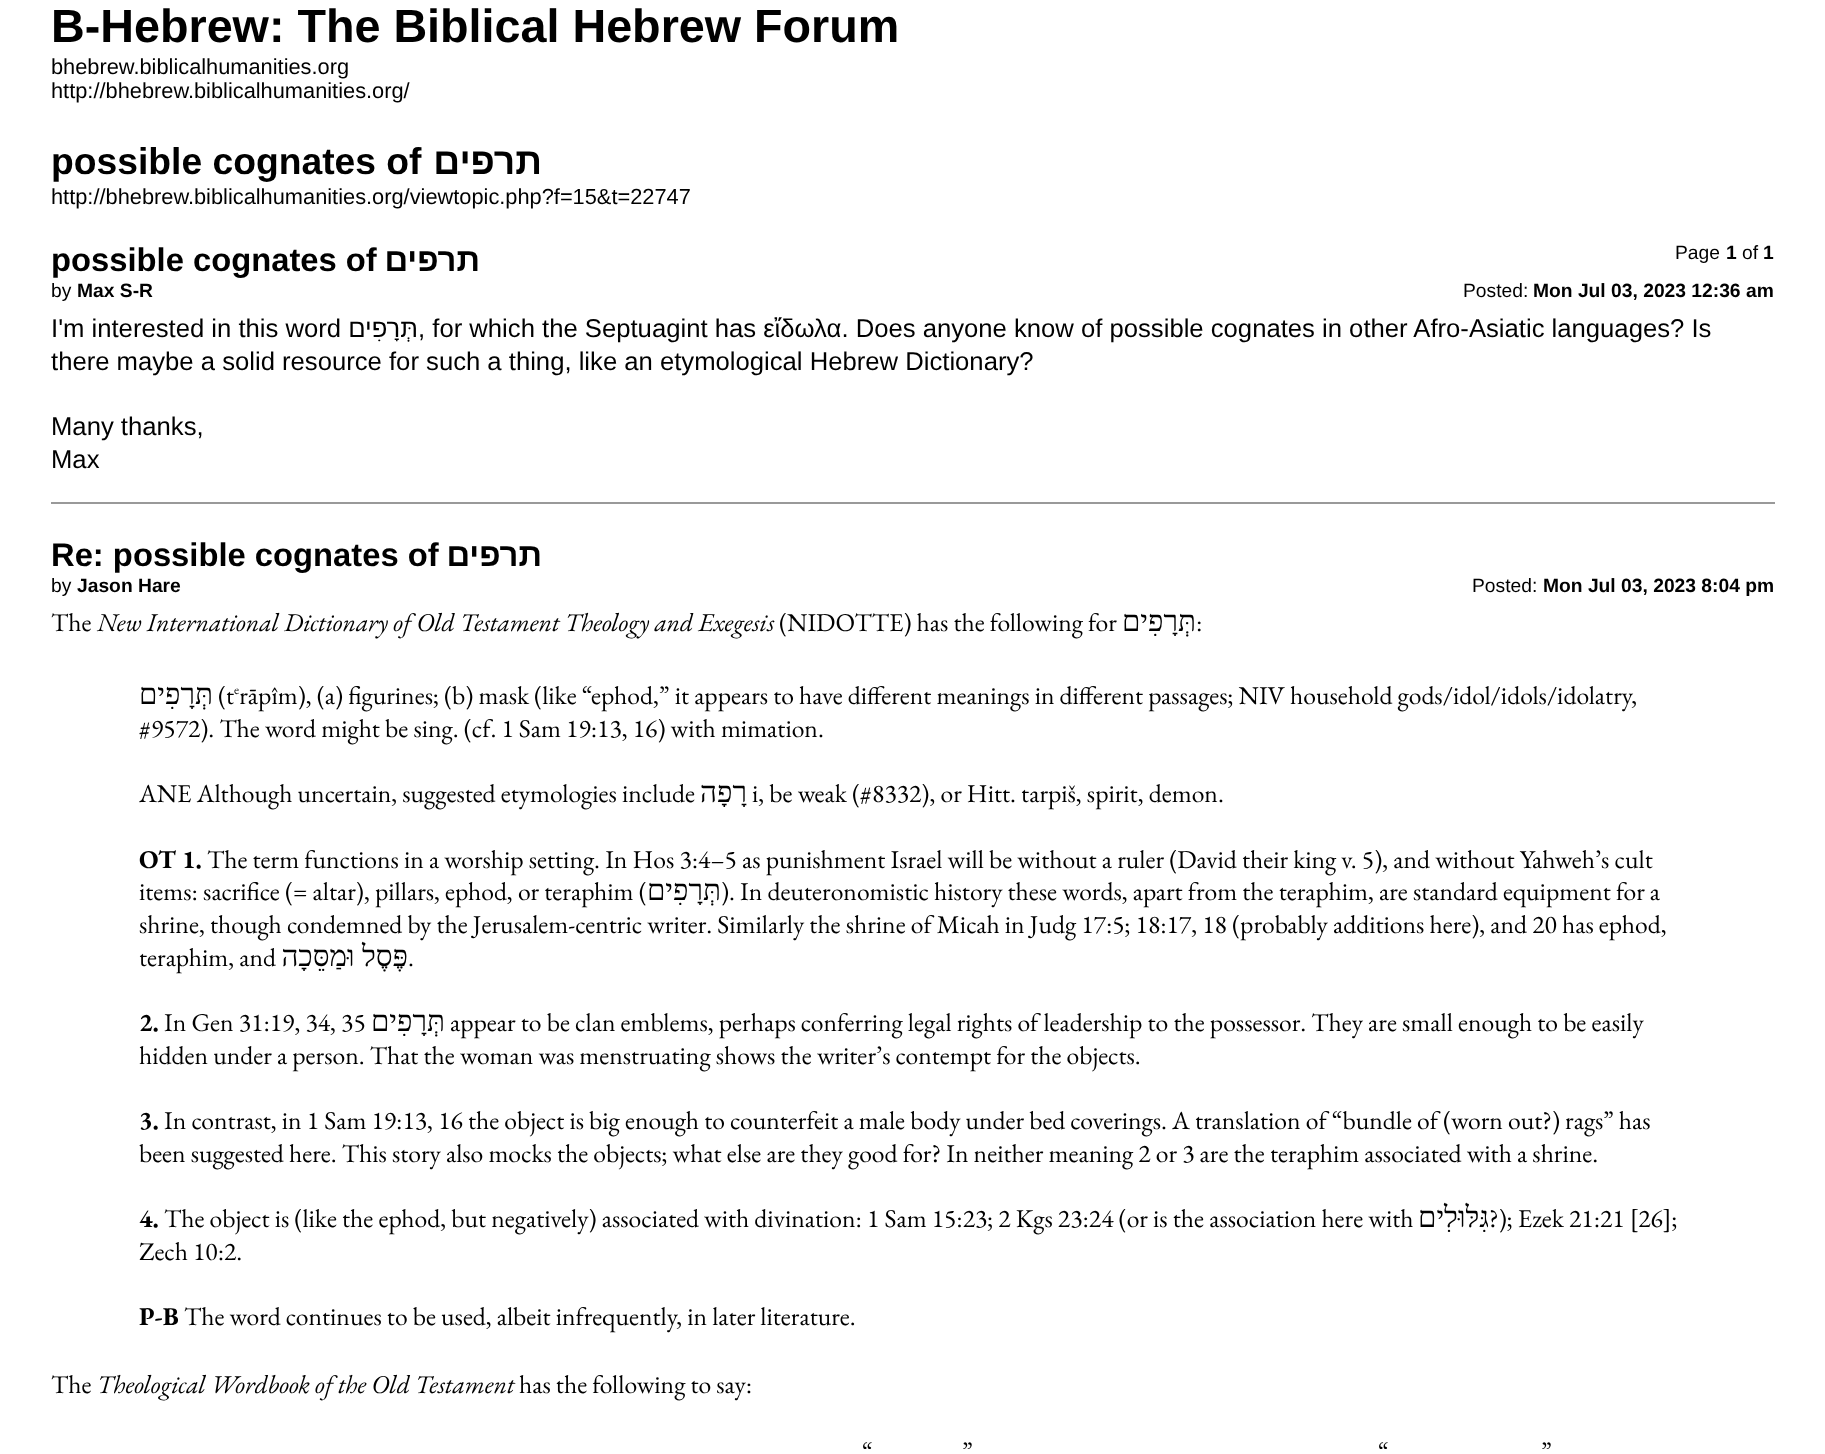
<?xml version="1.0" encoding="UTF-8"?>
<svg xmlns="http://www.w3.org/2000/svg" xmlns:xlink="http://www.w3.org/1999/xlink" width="1825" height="1454">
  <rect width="100%" height="100%" fill="#ffffff" />
  <rect x="51" y="502" width="1724" height="2" fill="#999999" />
  <text x="51" y="42" style="font-family: Liberation Sans; font-size: 46.7px; font-weight: bold; fill: #000000">B-Hebrew: The Biblical Hebrew Forum</text>
  <text x="51" y="74" style="font-family: Liberation Sans; font-size: 21.8px; fill: #000000">bhebrew.biblicalhumanities.org</text>
  <text x="51" y="98" style="font-family: Liberation Sans; font-size: 21.8px; fill: #000000">http://bhebrew.biblicalhumanities.org/</text>
  <text x="51" y="174" style="font-family: Liberation Sans; font-size: 37.25px; font-weight: bold; fill: #000000">possible cognates of</text>
  <text x="542" y="174" style="font-family: Liberation Sans; font-size: 37.25px; font-weight: bold; direction: rtl; fill: #000000">תרפים</text>
  <text x="51" y="204" style="font-family: Liberation Sans; font-size: 21.8px; fill: #000000">http://bhebrew.biblicalhumanities.org/viewtopic.php?f=15&amp;t=22747</text>
  <text x="1675" y="259" style="font-family: Liberation Sans; font-size: 19.25px; fill: #000000">Page</text>
  <text x="1726" y="259" style="font-family: Liberation Sans; font-size: 19.25px; font-weight: bold; fill: #000000">1</text>
  <text x="1742" y="259" style="font-family: Liberation Sans; font-size: 19.25px; fill: #000000">of</text>
  <text x="1763" y="259" style="font-family: Liberation Sans; font-size: 19.25px; font-weight: bold; fill: #000000">1</text>
  <text x="51" y="271" style="font-family: Liberation Sans; font-size: 32.75px; font-weight: bold; fill: #000000">possible cognates of</text>
  <text x="480" y="271" style="font-family: Liberation Sans; font-size: 32.75px; font-weight: bold; direction: rtl; fill: #000000">תרפים</text>
  <text x="51" y="297" style="font-family: Liberation Sans; font-size: 19.25px; fill: #000000">by</text>
  <text x="77" y="297" style="font-family: Liberation Sans; font-size: 19.25px; font-weight: bold; fill: #000000">Max S-R</text>
  <text x="1463" y="297" style="font-family: Liberation Sans; font-size: 19.25px; fill: #000000">Posted:</text>
  <text x="1533" y="297" style="font-family: Liberation Sans; font-size: 19.25px; font-weight: bold; fill: #000000">Mon Jul 03, 2023 12:36 am</text>
  <text x="51" y="337" style="font-family: Liberation Sans; font-size: 25.67px; fill: #000000">I'm interested in this word</text>
  <text x="418" y="337" style="font-family: Liberation Sans; font-size: 25.67px; direction: rtl; fill: #000000">תְּרָפִים</text>
  <text x="418" y="337" style="font-family: Liberation Sans; font-size: 25.67px; fill: #000000">, for which the Septuagint has εἴδωλα. Does anyone know of possible cognates in other Afro-Asiatic languages? Is</text>
  <text x="51" y="370" style="font-family: Liberation Sans; font-size: 25.67px; fill: #000000">there maybe a solid resource for such a thing, like an etymological Hebrew Dictionary?</text>
  <text x="51" y="435" style="font-family: Liberation Sans; font-size: 25.67px; fill: #000000">Many thanks,</text>
  <text x="51" y="468" style="font-family: Liberation Sans; font-size: 25.67px; fill: #000000">Max</text>
  <text x="51" y="566" style="font-family: Liberation Sans; font-size: 32.75px; font-weight: bold; fill: #000000">Re: possible cognates of</text>
  <text x="542" y="566" style="font-family: Liberation Sans; font-size: 32.75px; font-weight: bold; direction: rtl; fill: #000000">תרפים</text>
  <text x="51" y="592" style="font-family: Liberation Sans; font-size: 19.25px; fill: #000000">by</text>
  <text x="77" y="592" style="font-family: Liberation Sans; font-size: 19.25px; font-weight: bold; fill: #000000">Jason Hare</text>
  <text x="1472" y="592" style="font-family: Liberation Sans; font-size: 19.25px; fill: #000000">Posted:</text>
  <text x="1543" y="592" style="font-family: Liberation Sans; font-size: 19.25px; font-weight: bold; fill: #000000">Mon Jul 03, 2023 8:04 pm</text>
  <text x="51" y="631" style="font-family: EB Garamond; font-size: 25.67px; fill: #000000">The</text>
  <text x="97" y="631" style="font-family: EB Garamond; font-size: 25.67px; font-style: italic; fill: #000000">New International Dictionary of Old Testament Theology and Exegesis</text>
  <text x="779" y="631" style="font-family: EB Garamond; font-size: 25.67px; fill: #000000">(NIDOTTE) has the following for</text>
  <text x="1196" y="631" style="font-family: Liberation Serif; font-size: 29.5px; direction: rtl; fill: #000000">תְּרָפִים</text>
  <text x="1196" y="631" style="font-family: EB Garamond; font-size: 25.67px; fill: #000000">:</text>
  <text x="213" y="704" style="font-family: Liberation Serif; font-size: 29.5px; direction: rtl; fill: #000000">תְּרָפִים</text>
  <text x="218" y="704" style="font-family: EB Garamond; font-size: 25.67px; fill: #000000">(t rāpîm), (a) figurines; (b) mask (like “ephod,” it appears to have different meanings in different passages; NIV household gods/idol/idols/idolatry,</text>
  <text x="234" y="694" style="font-family: EB Garamond; font-size: 13px; fill: #000000">e</text>
  <text x="139" y="737" style="font-family: EB Garamond; font-size: 25.67px; fill: #000000">#9572). The word might be sing. (cf. 1 Sam 19:13, 16) with mimation.</text>
  <text x="139" y="802" style="font-family: EB Garamond; font-size: 25.67px; fill: #000000">ANE Although uncertain, suggested etymologies include</text>
  <text x="747" y="802" style="font-family: Liberation Serif; font-size: 29.5px; direction: rtl; fill: #000000">רָפָה</text>
  <text x="752" y="802" style="font-family: EB Garamond; font-size: 25.67px; fill: #000000">i, be weak (#8332), or Hitt. tarpiš, spirit, demon.</text>
  <text x="139" y="868" style="font-family: EB Garamond; font-size: 25.67px; font-weight: bold; fill: #000000">OT 1.</text>
  <text x="207" y="868" style="font-family: EB Garamond; font-size: 25.67px; fill: #000000">The term functions in a worship setting. In Hos 3:4–5 as punishment Israel will be without a ruler (David their king v. 5), and without Yahweh’s cult</text>
  <text x="139" y="900" style="font-family: EB Garamond; font-size: 25.67px; fill: #000000">items: sacrifice (= altar), pillars, ephod, or teraphim (</text>
  <text x="721" y="900" style="font-family: Liberation Serif; font-size: 29.5px; direction: rtl; fill: #000000">תְּרָפִים</text>
  <text x="721" y="900" style="font-family: EB Garamond; font-size: 25.67px; fill: #000000">). In deuteronomistic history these words, apart from the teraphim, are standard equipment for a</text>
  <text x="139" y="933" style="font-family: EB Garamond; font-size: 25.67px; fill: #000000">shrine, though condemned by the Jerusalem-centric writer. Similarly the shrine of Micah in Judg 17:5; 18:17, 18 (probably additions here), and 20 has ephod,</text>
  <text x="139" y="966" style="font-family: EB Garamond; font-size: 25.67px; fill: #000000">teraphim, and</text>
  <text x="408" y="966" style="font-family: Liberation Serif; font-size: 29.5px; direction: rtl; fill: #000000">פֶּסֶל וּמַסֵּכָה</text>
  <text x="408" y="966" style="font-family: EB Garamond; font-size: 25.67px; fill: #000000">.</text>
  <text x="139" y="1031" style="font-family: EB Garamond; font-size: 25.67px; font-weight: bold; fill: #000000">2.</text>
  <text x="164" y="1031" style="font-family: EB Garamond; font-size: 25.67px; fill: #000000">In Gen 31:19, 34, 35</text>
  <text x="445" y="1031" style="font-family: Liberation Serif; font-size: 29.5px; direction: rtl; fill: #000000">תְּרָפִים</text>
  <text x="450" y="1031" style="font-family: EB Garamond; font-size: 25.67px; fill: #000000">appear to be clan emblems, perhaps conferring legal rights of leadership to the possessor. They are small enough to be easily</text>
  <text x="139" y="1064" style="font-family: EB Garamond; font-size: 25.67px; fill: #000000">hidden under a person. That the woman was menstruating shows the writer’s contempt for the objects.</text>
  <text x="139" y="1129" style="font-family: EB Garamond; font-size: 25.67px; font-weight: bold; fill: #000000">3.</text>
  <text x="164" y="1129" style="font-family: EB Garamond; font-size: 25.67px; fill: #000000">In contrast, in 1 Sam 19:13, 16 the object is big enough to counterfeit a male body under bed coverings. A translation of “bundle of (worn out?) rags” has</text>
  <text x="139" y="1162" style="font-family: EB Garamond; font-size: 25.67px; fill: #000000">been suggested here. This story also mocks the objects; what else are they good for? In neither meaning 2 or 3 are the teraphim associated with a shrine.</text>
  <text x="139" y="1227" style="font-family: EB Garamond; font-size: 25.67px; font-weight: bold; fill: #000000">4.</text>
  <text x="164" y="1227" style="font-family: EB Garamond; font-size: 25.67px; fill: #000000">The object is (like the ephod, but negatively) associated with divination: 1 Sam 15:23; 2 Kgs 23:24 (or is the association here with</text>
  <text x="1489" y="1227" style="font-family: Liberation Serif; font-size: 29.5px; direction: rtl; fill: #000000">גִּלּוּלִים</text>
  <text x="1489" y="1227" style="font-family: EB Garamond; font-size: 25.67px; fill: #000000">?); Ezek 21:21 [26];</text>
  <text x="139" y="1260" style="font-family: EB Garamond; font-size: 25.67px; fill: #000000">Zech 10:2.</text>
  <text x="139" y="1325" style="font-family: EB Garamond; font-size: 25.67px; font-weight: bold; fill: #000000">P-B</text>
  <text x="184" y="1325" style="font-family: EB Garamond; font-size: 25.67px; fill: #000000">The word continues to be used, albeit infrequently, in later literature.</text>
  <text x="51" y="1393" style="font-family: EB Garamond; font-size: 25.67px; fill: #000000">The</text>
  <text x="97" y="1393" style="font-family: EB Garamond; font-size: 25.67px; font-style: italic; fill: #000000">Theological Wordbook of the Old Testament</text>
  <text x="519" y="1393" style="font-family: EB Garamond; font-size: 25.67px; fill: #000000">has the following to say:</text>
  <text x="862" y="1460" style="font-family: EB Garamond; font-size: 25.67px; fill: #000000">“</text>
  <text x="962" y="1460" style="font-family: EB Garamond; font-size: 25.67px; fill: #000000">”</text>
  <text x="1378" y="1460" style="font-family: EB Garamond; font-size: 25.67px; fill: #000000">“</text>
  <text x="1541" y="1460" style="font-family: EB Garamond; font-size: 25.67px; fill: #000000">”</text>
</svg>
